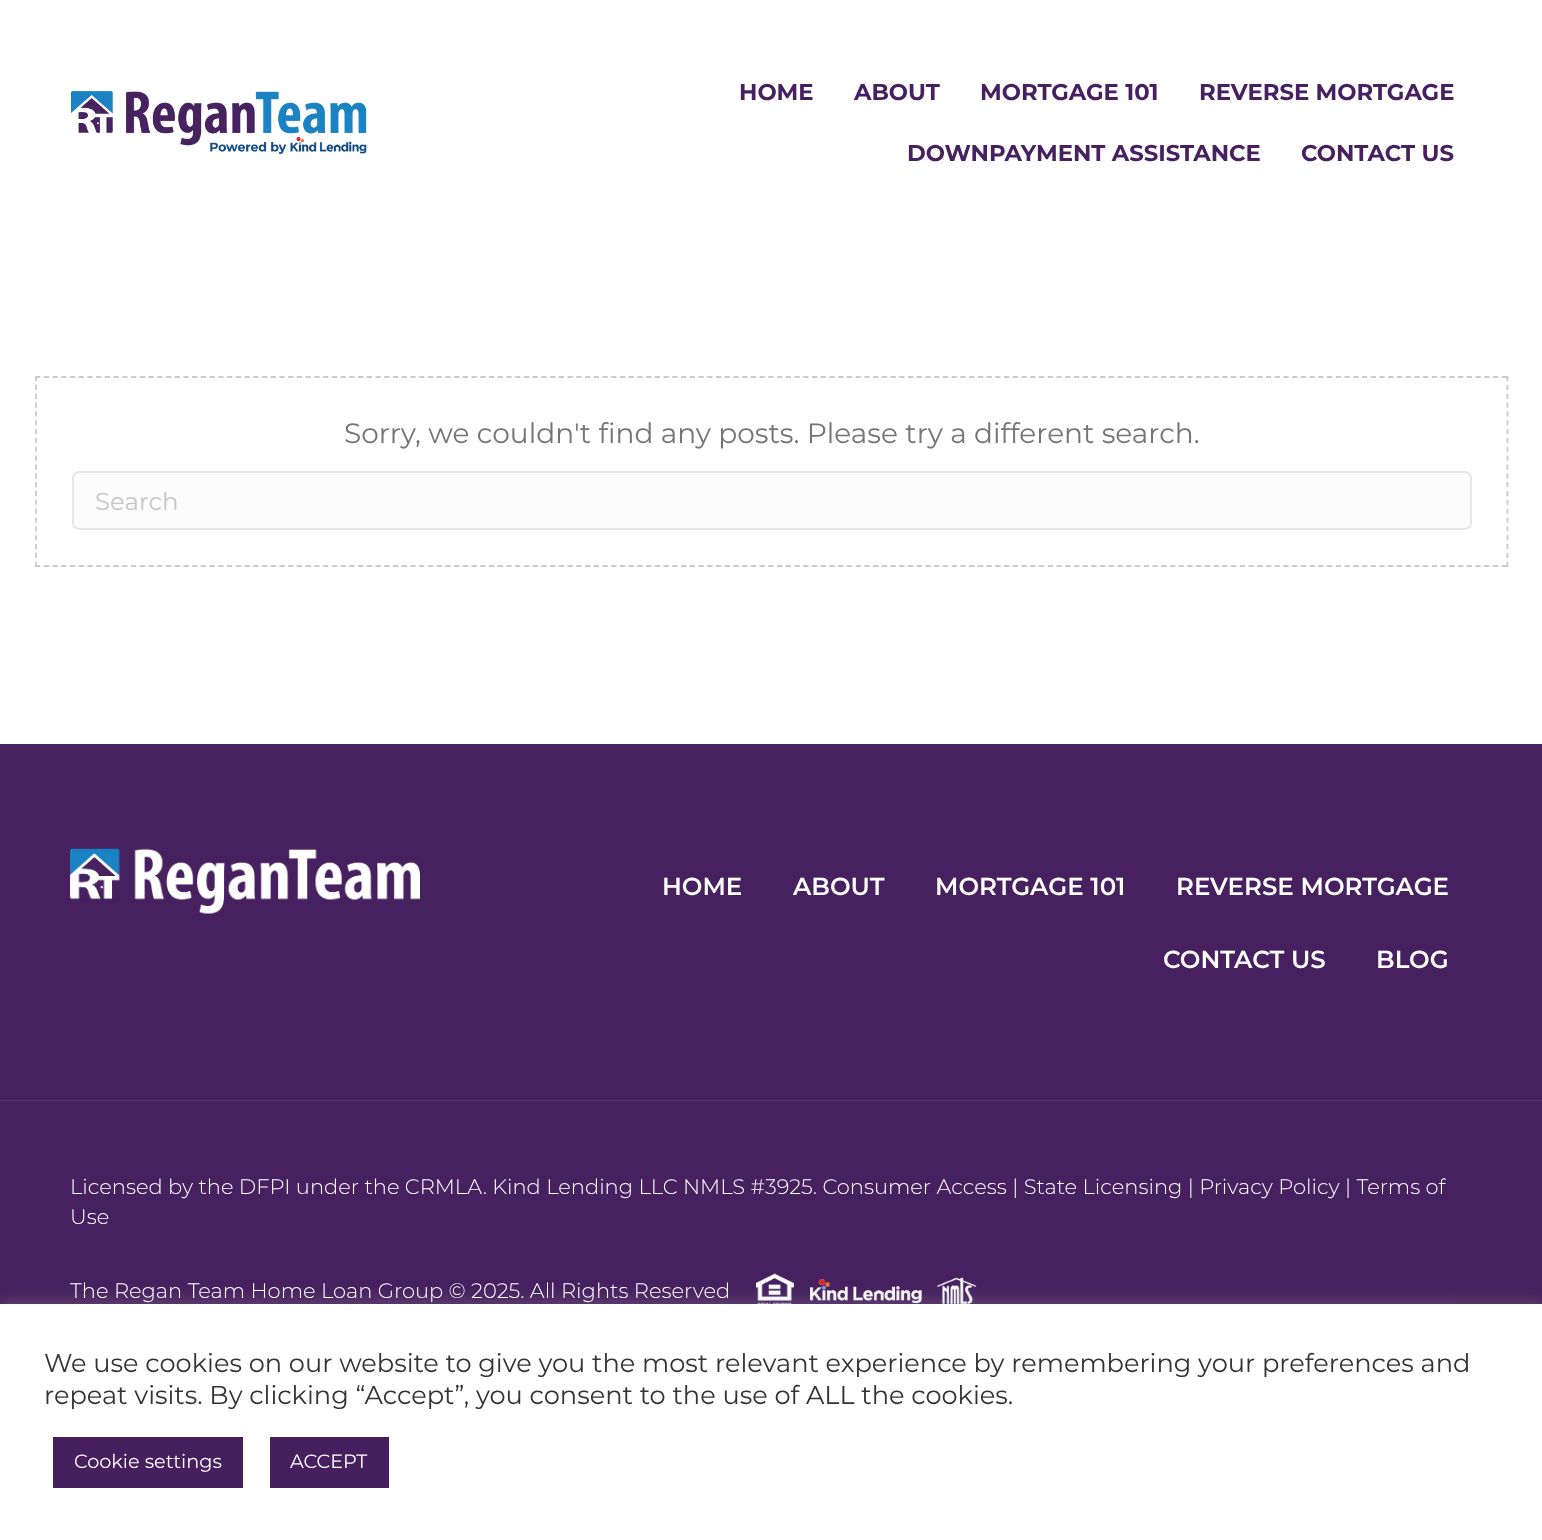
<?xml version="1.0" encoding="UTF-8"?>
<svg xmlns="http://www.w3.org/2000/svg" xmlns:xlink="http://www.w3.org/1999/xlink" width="1542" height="1540">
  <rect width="100%" height="100%" fill="#ffffff" />
  <image x="71" y="91" width="296" height="63" xlink:href="image1.png" />
  <path d="M 35 377 h 1473.5" fill="none" stroke="#cccccc" stroke-width="1.8" stroke-dasharray="5.25 3.48" />
  <path d="M 1507.5 376 v 191" fill="none" stroke="#cccccc" stroke-width="1.8" stroke-dasharray="5.25 3.59" />
  <path d="M 35 566 h 1473.5" fill="none" stroke="#cccccc" stroke-width="1.8" stroke-dasharray="5.25 3.48" />
  <path d="M 36 376 v 191" fill="none" stroke="#cccccc" stroke-width="1.8" stroke-dasharray="5.25 3.59" />
  <rect x="73" y="472" width="1398" height="57" rx="6" fill="#fcfcfc" stroke="#e6e6e6" stroke-width="2" />
  <rect y="744" width="1542" height="356" fill="#46205f" />
  <image x="70" y="848" width="350" height="66" xlink:href="image2.png" />
  <rect y="1100" width="1542" height="1" fill="#59366f" />
  <rect y="1101" width="1542" height="203" fill="#46205f" />
  <image x="756" y="1273" width="221" height="31" xlink:href="image3.png" />
  <rect y="1302" width="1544" height="236" fill="#acabab" fill-opacity="0.3" filter="blur(9px)" />
  <rect x="1453" y="1309" width="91" height="91" fill="#000000" fill-opacity="0.1" filter="blur(9px)" />
  <rect y="1304" width="1542" height="236" fill="#ffffff" />
  <rect x="53" y="1437" width="190" height="51" fill="#461f5f" />
  <rect x="270" y="1437" width="119" height="51" fill="#461f5f" />
  <text x="739" y="100" style="font-family: Montserrat; font-size: 22.75px; font-weight: bold; fill: #46205f">HOME</text>
  <text x="854" y="100" style="font-family: Montserrat; font-size: 22.75px; font-weight: bold; fill: #46205f">ABOUT</text>
  <text x="980" y="100" style="font-family: Montserrat; font-size: 22.75px; font-weight: bold; fill: #46205f">MORTGAGE 101</text>
  <text x="1199" y="100" style="font-family: Montserrat; font-size: 22.75px; font-weight: bold; fill: #46205f">REVERSE MORTGAGE</text>
  <text x="907" y="161" style="font-family: Montserrat; font-size: 22.75px; font-weight: bold; fill: #46205f">DOWNPAYMENT ASSISTANCE</text>
  <text x="1301" y="161" style="font-family: Montserrat; font-size: 22.75px; font-weight: bold; fill: #46205f">CONTACT US</text>
  <text x="344" y="443" style="font-family: Montserrat; font-size: 28px; fill: #757575">Sorry, we couldn't find any posts. Please try a different search.</text>
  <text x="95" y="510" style="font-family: Montserrat; font-size: 24.5px; fill: #c6c6c6">Search</text>
  <text x="662" y="895" style="font-family: Montserrat; font-size: 24.5px; font-weight: 600; fill: #ffffff">HOME</text>
  <text x="793" y="895" style="font-family: Montserrat; font-size: 24.5px; font-weight: 600; fill: #ffffff">ABOUT</text>
  <text x="935" y="895" style="font-family: Montserrat; font-size: 24.5px; font-weight: 600; fill: #ffffff">MORTGAGE 101</text>
  <text x="1176" y="895" style="font-family: Montserrat; font-size: 24.5px; font-weight: 600; fill: #ffffff">REVERSE MORTGAGE</text>
  <text x="1163" y="968" style="font-family: Montserrat; font-size: 24.5px; font-weight: 600; fill: #ffffff">CONTACT US</text>
  <text x="1376" y="968" style="font-family: Montserrat; font-size: 24.5px; font-weight: 600; fill: #ffffff">BLOG</text>
  <text x="70" y="1194" style="font-family: Montserrat; font-size: 21px; font-weight: 300; fill: #ffffff">Licensed by the DFPI under the CRMLA. Kind Lending LLC NMLS #3925. Consumer Access | State Licensing | Privacy Policy | Terms of</text>
  <text x="70" y="1224" style="font-family: Montserrat; font-size: 21px; font-weight: 300; fill: #ffffff">Use</text>
  <text x="70" y="1298" style="font-family: Montserrat; font-size: 21px; font-weight: 300; fill: #ffffff">The Regan Team Home Loan Group © 2025. All Rights Reserved</text>
  <text x="44" y="1372" style="font-family: Montserrat; font-size: 25.67px; fill: #333333">We use cookies on our website to give you the most relevant experience by remembering your preferences and</text>
  <text x="44" y="1404" style="font-family: Montserrat; font-size: 25.67px; fill: #333333">repeat visits. By clicking “Accept”, you consent to the use of ALL the cookies.</text>
  <text x="74" y="1468" style="font-family: Montserrat; font-size: 19.25px; fill: #ffffff">Cookie settings</text>
  <text x="290" y="1468" style="font-family: Montserrat; font-size: 19.25px; fill: #ffffff">ACCEPT</text>
</svg>
